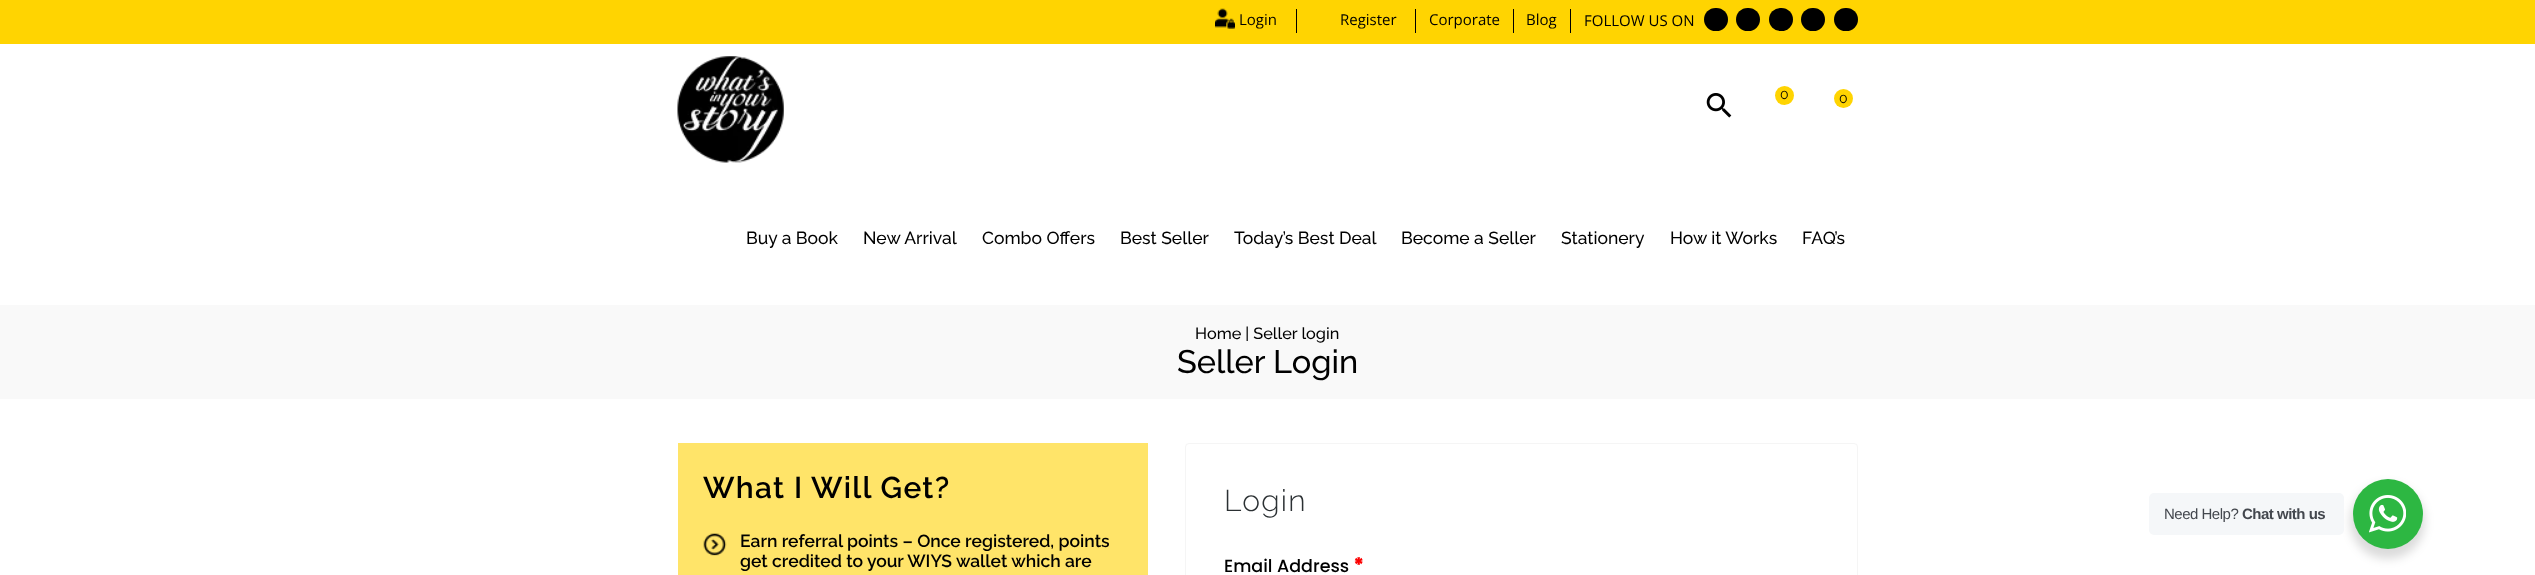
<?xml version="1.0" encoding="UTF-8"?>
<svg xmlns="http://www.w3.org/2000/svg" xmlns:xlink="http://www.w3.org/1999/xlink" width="2535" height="575">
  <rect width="100%" height="100%" fill="#ffffff" />
  <rect width="2535" height="44" fill="#ffd401" />
  <image x="1215" y="8" width="20" height="21" xlink:href="image1.png" />
  <rect x="1296" y="9" width="1" height="24" fill="#000000" />
  <rect x="1415" y="9" width="1" height="24" fill="#000000" />
  <rect x="1513" y="9" width="1" height="24" fill="#000000" />
  <rect x="1570" y="9" width="1" height="24" fill="#000000" />
  <rect x="1704" y="8" width="24" height="23" rx="11.5" fill="#000000" />
  <rect x="1736" y="8" width="24" height="23" rx="11.5" fill="#000000" />
  <rect x="1769" y="8" width="24" height="23" rx="11.5" fill="#000000" />
  <rect x="1801" y="8" width="24" height="23" rx="11.5" fill="#000000" />
  <rect x="1834" y="8" width="24" height="23" rx="11.5" fill="#000000" />
  <image x="677" y="56" width="107" height="107" xlink:href="image2.png" />
  <image x="1706" y="93" width="26" height="25" xlink:href="image3.png" />
  <circle cx="1784.5" cy="95.5" r="9.5" fill="#ffd401" />
  <circle cx="1843.5" cy="98.5" r="9.5" fill="#ffd401" />
  <rect y="305" width="2535" height="94" fill="#f9f9f9" />
  <rect x="678" y="443" width="470" height="132" fill="#ffe469" />
  <image x="703" y="533" width="24" height="23" xlink:href="image4.png" />
  <rect x="1185.5" y="443.5" width="672" height="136" rx="3.5" fill="none" stroke="#f5f5f5" />
  <rect x="2350" y="484" width="75" height="75" rx="37.5" fill="#000000" fill-opacity="0.14" filter="blur(5px)" />
  <rect x="2149" y="493" width="195" height="42" rx="5" fill="#f5f7f9" />
  <circle cx="2388" cy="514" r="35" fill="#2db742" />
  <image x="2369" y="495" width="37" height="38" xlink:href="image5.png" />
  <text x="1239" y="25" style="font-family: Open Sans; font-size: 15px; fill: #000000">Login</text>
  <text x="1340" y="25" style="font-family: Open Sans; font-size: 15px; fill: #000000">Register</text>
  <text x="1429" y="25" style="font-family: Open Sans; font-size: 15px; fill: #000000">Corporate</text>
  <text x="1526" y="25" style="font-family: Open Sans; font-size: 15px; fill: #000000">Blog</text>
  <text x="1584" y="26" style="font-family: Open Sans; font-size: 15px; fill: #000000">FOLLOW US ON</text>
  <text x="1780" y="99" style="font-family: Raleway; font-size: 14px; fill: #000000">0</text>
  <text x="1839" y="103" style="font-family: Raleway; font-size: 14px; fill: #000000">0</text>
  <text x="746" y="244" style="font-family: Raleway; font-size: 17.5px; font-weight: 500; fill: #000000">Buy a Book</text>
  <text x="863" y="244" style="font-family: Raleway; font-size: 17.5px; font-weight: 500; fill: #000000">New Arrival</text>
  <text x="982" y="244" style="font-family: Raleway; font-size: 17.5px; font-weight: 500; fill: #000000">Combo Offers</text>
  <text x="1120" y="244" style="font-family: Raleway; font-size: 17.5px; font-weight: 500; fill: #000000">Best Seller</text>
  <text x="1234" y="244" style="font-family: Raleway; font-size: 17.5px; font-weight: 500; fill: #000000">Today’s Best Deal</text>
  <text x="1401" y="244" style="font-family: Raleway; font-size: 17.5px; font-weight: 500; fill: #000000">Become a Seller</text>
  <text x="1561" y="244" style="font-family: Raleway; font-size: 17.5px; font-weight: 500; fill: #000000">Stationery</text>
  <text x="1670" y="244" style="font-family: Raleway; font-size: 17.5px; font-weight: 500; fill: #000000">How it Works</text>
  <text x="1802" y="244" style="font-family: Raleway; font-size: 17.5px; font-weight: 500; fill: #000000">FAQ’s</text>
  <text x="1195" y="339" style="font-family: Raleway; font-size: 16.25px; font-weight: 500; fill: #000000">Home | Seller login</text>
  <text x="1177" y="373" style="font-family: Raleway; font-size: 32.5px; font-weight: 500; fill: #000000">Seller Login</text>
  <text x="703" y="498" style="font-family: Raleway; font-size: 30px; font-weight: 600; letter-spacing: 1.25px; fill: #000000">What I Will Get?</text>
  <text x="740" y="547" style="font-family: Raleway; font-size: 17.5px; font-weight: 600; fill: #000000">Earn referral points – Once registered, points</text>
  <text x="740" y="567" style="font-family: Raleway; font-size: 17.5px; font-weight: 600; fill: #000000">get credited to your WIYS wallet which are</text>
  <text x="1224" y="511" style="font-family: Raleway; font-size: 30px; font-weight: 300; letter-spacing: 1.25px; fill: #2b3033">Login</text>
  <text x="1224" y="572" style="font-family: Poppins; font-size: 17.5px; font-weight: 500; fill: #000000">Email Address</text>
  <text x="1353" y="572" style="font-family: Poppins; font-size: 20px; font-weight: 900; fill: #fc0000">*</text>
  <text x="2164" y="519" style="font-family: Liberation Sans; font-size: 15px; letter-spacing: -0.5px; fill: #43474e">Need Help?</text>
  <text x="2242" y="519" style="font-family: Liberation Sans; font-size: 15px; font-weight: bold; letter-spacing: -0.5px; fill: #43474e">Chat with us</text>
</svg>
